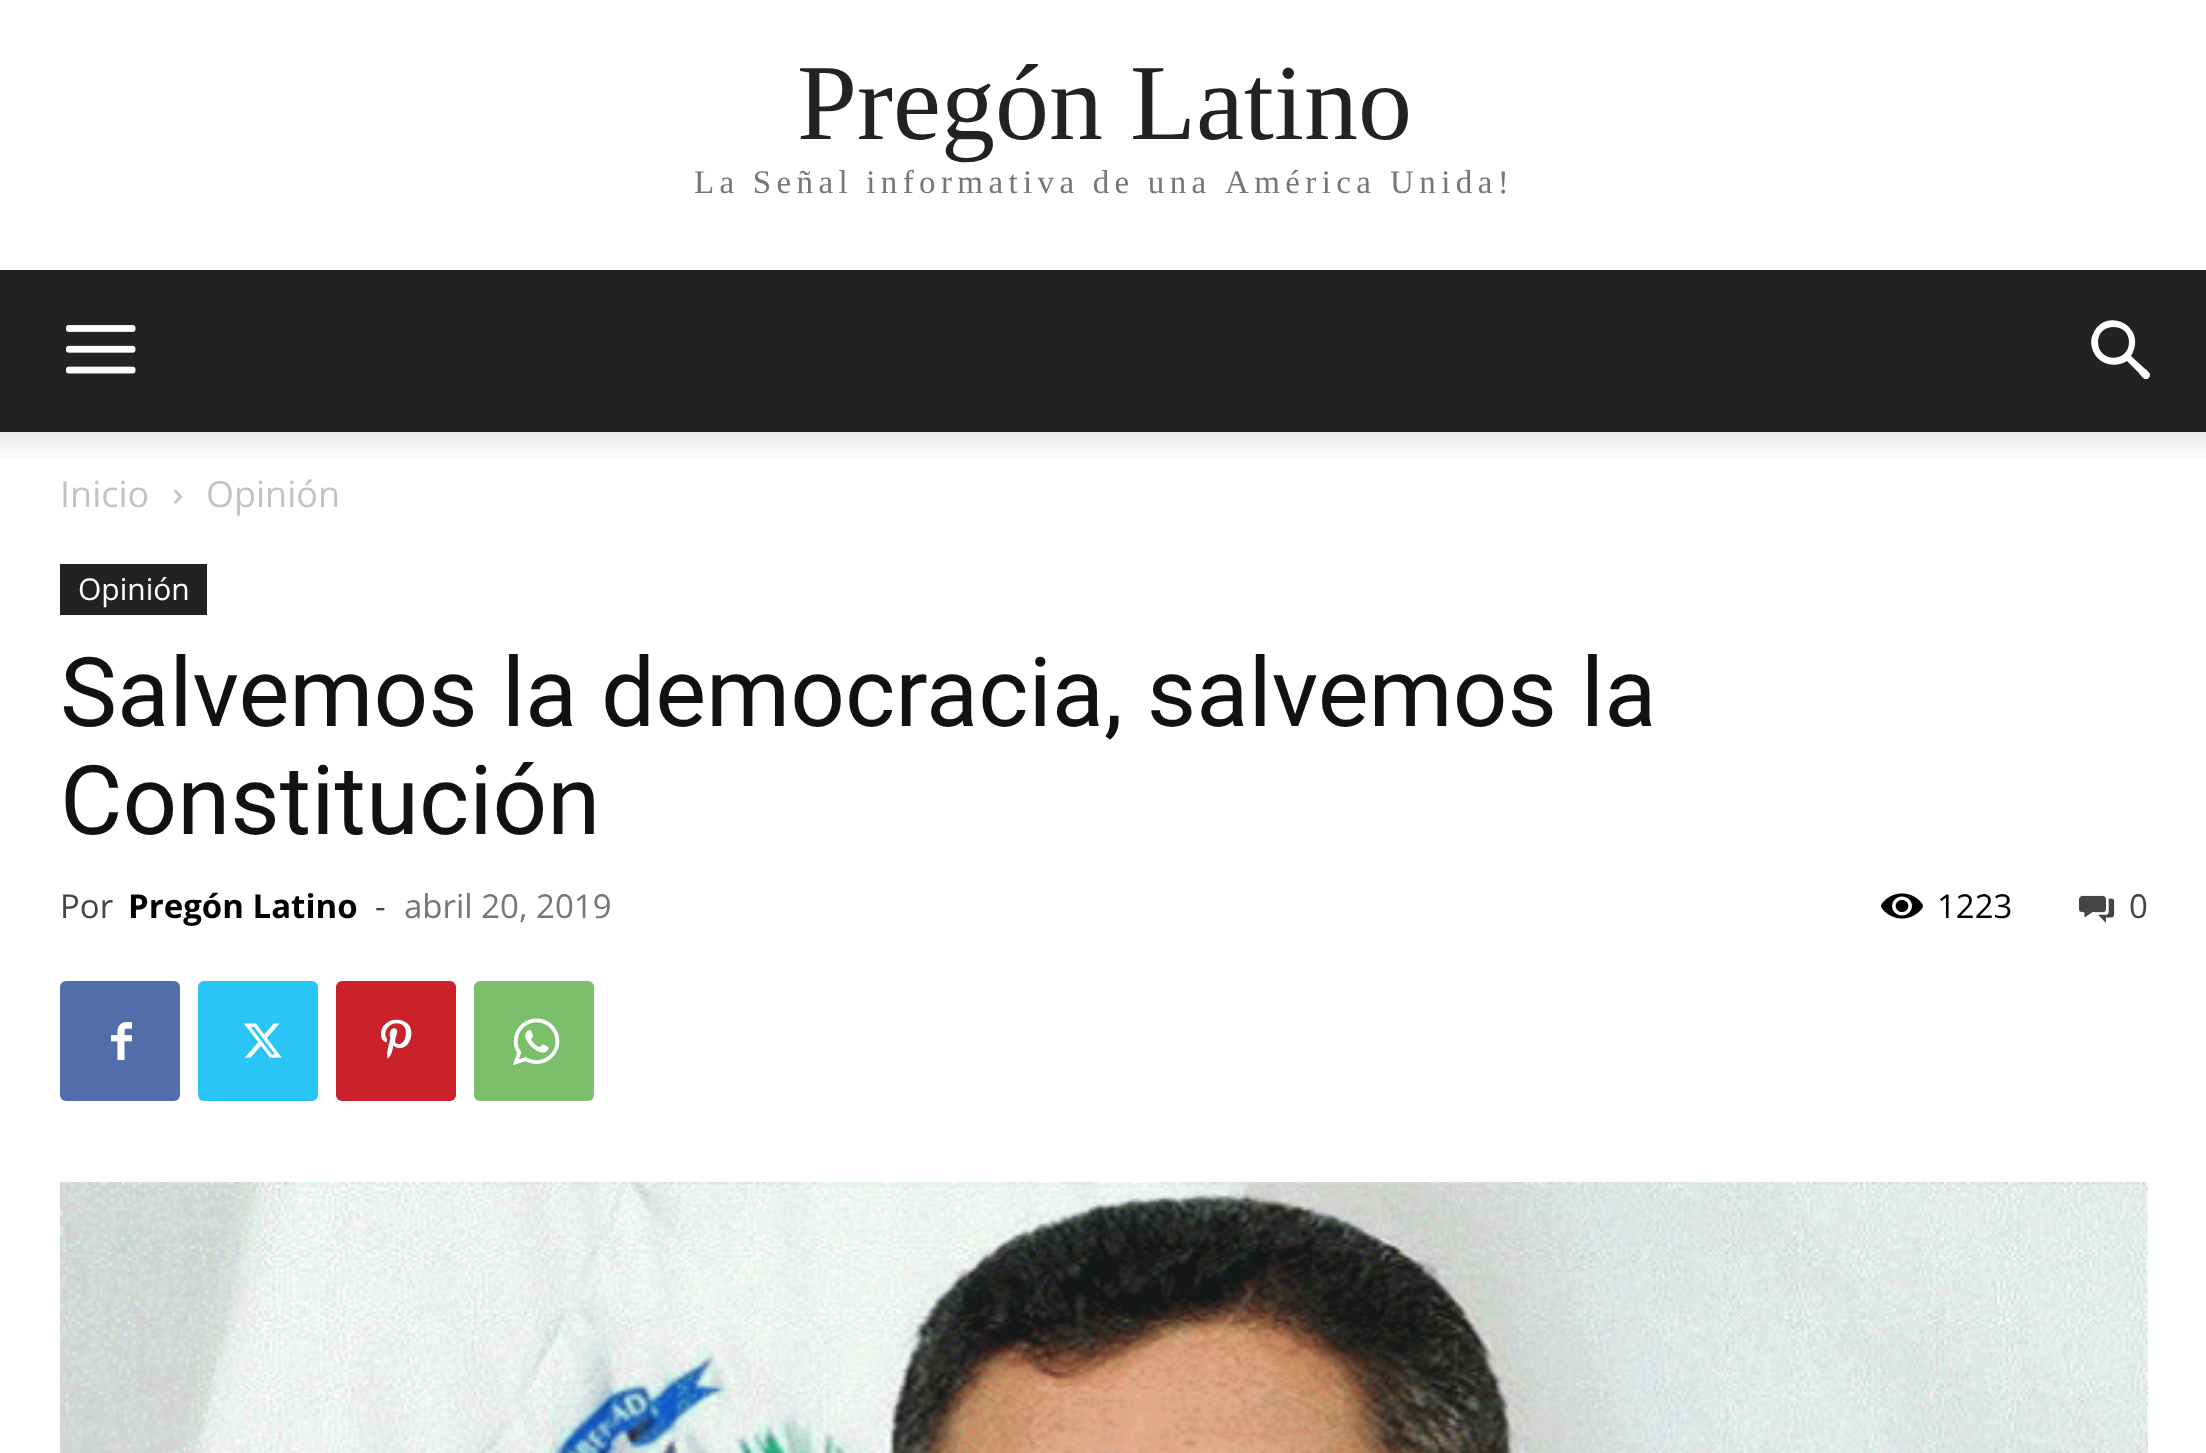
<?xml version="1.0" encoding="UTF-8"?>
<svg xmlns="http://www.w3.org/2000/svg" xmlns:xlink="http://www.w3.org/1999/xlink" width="2206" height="1453">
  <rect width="100%" height="100%" fill="#ffffff" />
  <rect y="270" width="2206" height="162" fill="#222222" />
  <image x="66" y="325" width="70" height="49" xlink:href="image1.png" />
  <path d="M 2129 342 c 0 21 -31 21 -31 0 c 0 -20 31 -20 31 0 z m 21 33 c 0 -3 -5 -6 -7 -8 l -12 -11 c 18 -30 -26 -51 -38 -22 c -3 6 -2 13 1 19 c 6 12 22 15 33 8 l 11 11 c 2 2 5 8 9 7 c 1 0 3 -2 3 -4 z" fill="#ffffff" />
  <image x="0" y="432" width="2206" height="26" xlink:href="image2.png" />
  <image x="174" y="489" width="9" height="15" xlink:href="image3.png" />
  <rect x="60" y="564" width="147" height="51" fill="#222222" />
  <image x="1881" y="893" width="42" height="26" xlink:href="image4.png" />
  <image x="2079" y="895" width="36" height="28" xlink:href="image5.png" />
  <rect x="60" y="981" width="120" height="120" rx="6" fill="#516eab" />
  <image x="111" y="1022" width="21" height="38" xlink:href="image6.png" />
  <rect x="198" y="981" width="120" height="120" rx="6" fill="#29c5f6" />
  <image x="244" y="1023" width="38" height="35" xlink:href="image7.png" />
  <rect x="336" y="981" width="120" height="120" rx="6" fill="#ca212a" />
  <image x="381" y="1019" width="31" height="40" xlink:href="image8.png" />
  <rect x="474" y="981" width="120" height="120" rx="6" fill="#7bbf6a" />
  <image x="513" y="1018" width="47" height="48" xlink:href="image9.png" />
  <image x="60" y="1182" width="2088" height="271" xlink:href="image10.png" />
  <text x="797" y="139" style="font-family: Liberation Serif; font-size: 108px; fill: #222222">Pregón Latino</text>
  <text x="694" y="193" word-spacing="-0.5" style="font-family: Liberation Serif; font-size: 33px; letter-spacing: 5.4px; fill: #767676">La Señal informativa de una</text>
  <text x="1225" y="193" style="font-family: Liberation Serif; font-size: 33px; letter-spacing: 5.4px; fill: #767676">América Unida!</text>
  <text x="60" y="507" style="font-family: Open Sans; font-size: 36px; fill: #c3c3c3">Inicio</text>
  <text x="206" y="507" style="font-family: Open Sans; font-size: 36px; fill: #c3c3c3">Opinión</text>
  <text x="78" y="600" style="font-family: Open Sans; font-size: 30px; fill: #ffffff">Opinión</text>
  <text x="60" y="726" style="font-family: Roboto; font-size: 96px; fill: #111111">Salvemos la democracia, salvemos la</text>
  <text x="60" y="834" style="font-family: Roboto; font-size: 96px; fill: #111111">Constitución</text>
  <text x="60" y="918" style="font-family: Open Sans; font-size: 33px; fill: #444444">Por</text>
  <text x="128" y="918" style="font-family: Open Sans; font-size: 33px; font-weight: bold; fill: #000000">Pregón Latino</text>
  <text x="375" y="918" style="font-family: Open Sans; font-size: 33px; fill: #444444">-</text>
  <text x="404" y="918" style="font-family: Open Sans; font-size: 33px; fill: #767676">abril 20, 2019</text>
  <text x="1937" y="918" style="font-family: Open Sans; font-size: 33px; fill: #000000">1223</text>
  <text x="2129" y="918" style="font-family: Open Sans; font-size: 33px; fill: #444444">0</text>
</svg>
